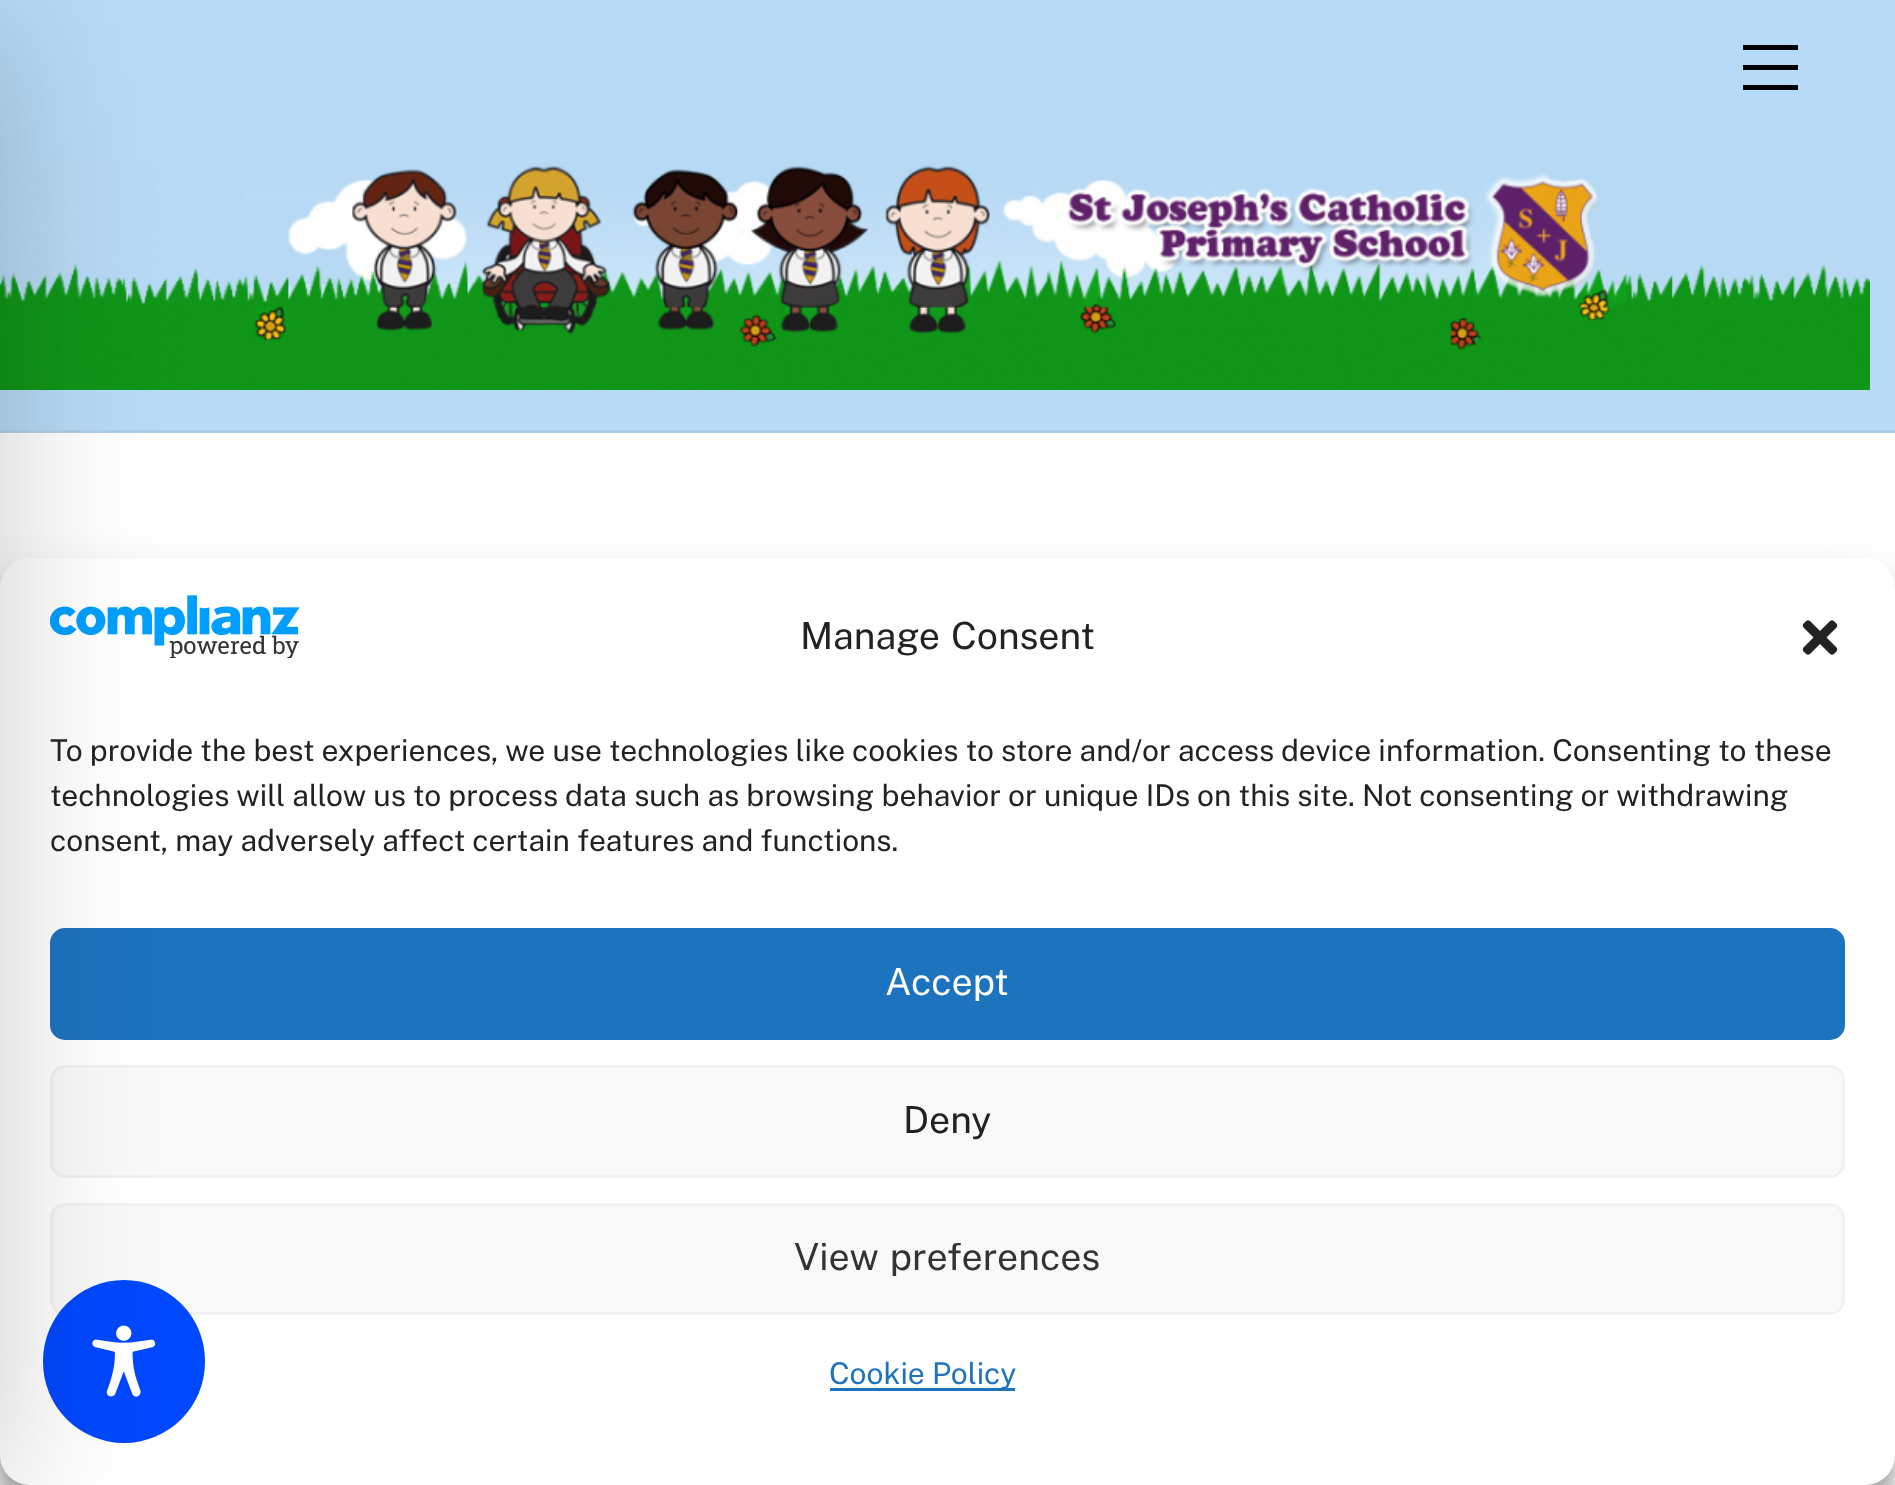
<?xml version="1.0" encoding="UTF-8"?>
<svg xmlns="http://www.w3.org/2000/svg" xmlns:xlink="http://www.w3.org/1999/xlink" width="1895" height="1485">
  <rect width="100%" height="100%" fill="#ffffff" />
  <rect width="1895" height="430" fill="#b7daf6" />
  <rect y="430" width="1895" height="3" fill="#aecfea" />
  <rect x="1743" y="85" width="55" height="5" fill="#000000" />
  <rect x="1743" y="45" width="55" height="5" fill="#000000" />
  <rect x="1743" y="65" width="55" height="5" fill="#000000" />
  <image x="0" y="162" width="1870" height="228" xlink:href="image1.png" />
  <rect y="573" width="1895" height="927" rx="30" fill="#000000" fill-opacity="0.23" filter="blur(7.5px)" />
  <rect y="583" width="1895" height="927" rx="30" fill="#000000" fill-opacity="0.19" filter="blur(25px)" />
  <rect y="558" width="1895" height="927" rx="30" fill="#ffffff" />
  <image x="50" y="595" width="250" height="63" xlink:href="image2.png" />
  <rect x="51.5" y="929.5" width="1792" height="109" rx="13.5" fill="#1e73be" stroke="#1e73be" stroke-width="3" />
  <rect x="51.5" y="1066.5" width="1792" height="110" rx="13.5" fill="#f9f9f9" stroke="#f2f2f2" stroke-width="3" />
  <rect x="51.5" y="1204.5" width="1792" height="109" rx="13.5" fill="#f9f9f9" stroke="#f2f2f2" stroke-width="3" />
  <rect x="43" y="1280" width="162" height="163" rx="81" fill="#0048fe" />
  <image x="92" y="1325" width="64" height="72" xlink:href="image4.png" />
  <rect x="-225" y="25" width="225" height="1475" fill="#000000" fill-opacity="0.2" filter="blur(75px)" />
  <image x="1802" y="620" width="36" height="35" xlink:href="image3.png" />
  <rect x="830" y="1388" width="185" height="3" fill="#1e73be" />
  <text x="800" y="649" word-spacing="2" style="font-family: Public Sans; font-size: 37.5px; fill: #222222">Manage Consent</text>
  <text x="50" y="761" style="font-family: Public Sans; font-size: 30px; fill: #222222">To provide the best experiences, we use technologies like cookies to store and/or access device information. Consenting to these</text>
  <text x="50" y="806" style="font-family: Public Sans; font-size: 30px; fill: #222222">technologies will allow us to process data such as browsing behavior or unique IDs on this site. Not consenting or withdrawing</text>
  <text x="50" y="851" style="font-family: Public Sans; font-size: 30px; fill: #222222">consent, may adversely affect certain features and functions.</text>
  <text x="885" y="995" style="font-family: Public Sans; font-size: 37.5px; fill: #ffffff">Accept</text>
  <text x="903" y="1133" style="font-family: Public Sans; font-size: 37.5px; fill: #222222">Deny</text>
  <text x="794" y="1270" word-spacing="2" style="font-family: Public Sans; font-size: 37.5px; fill: #333333">View preferences</text>
  <text x="829" y="1384" style="font-family: Public Sans; font-size: 30px; fill: #1e73be">Cookie Policy</text>
</svg>
